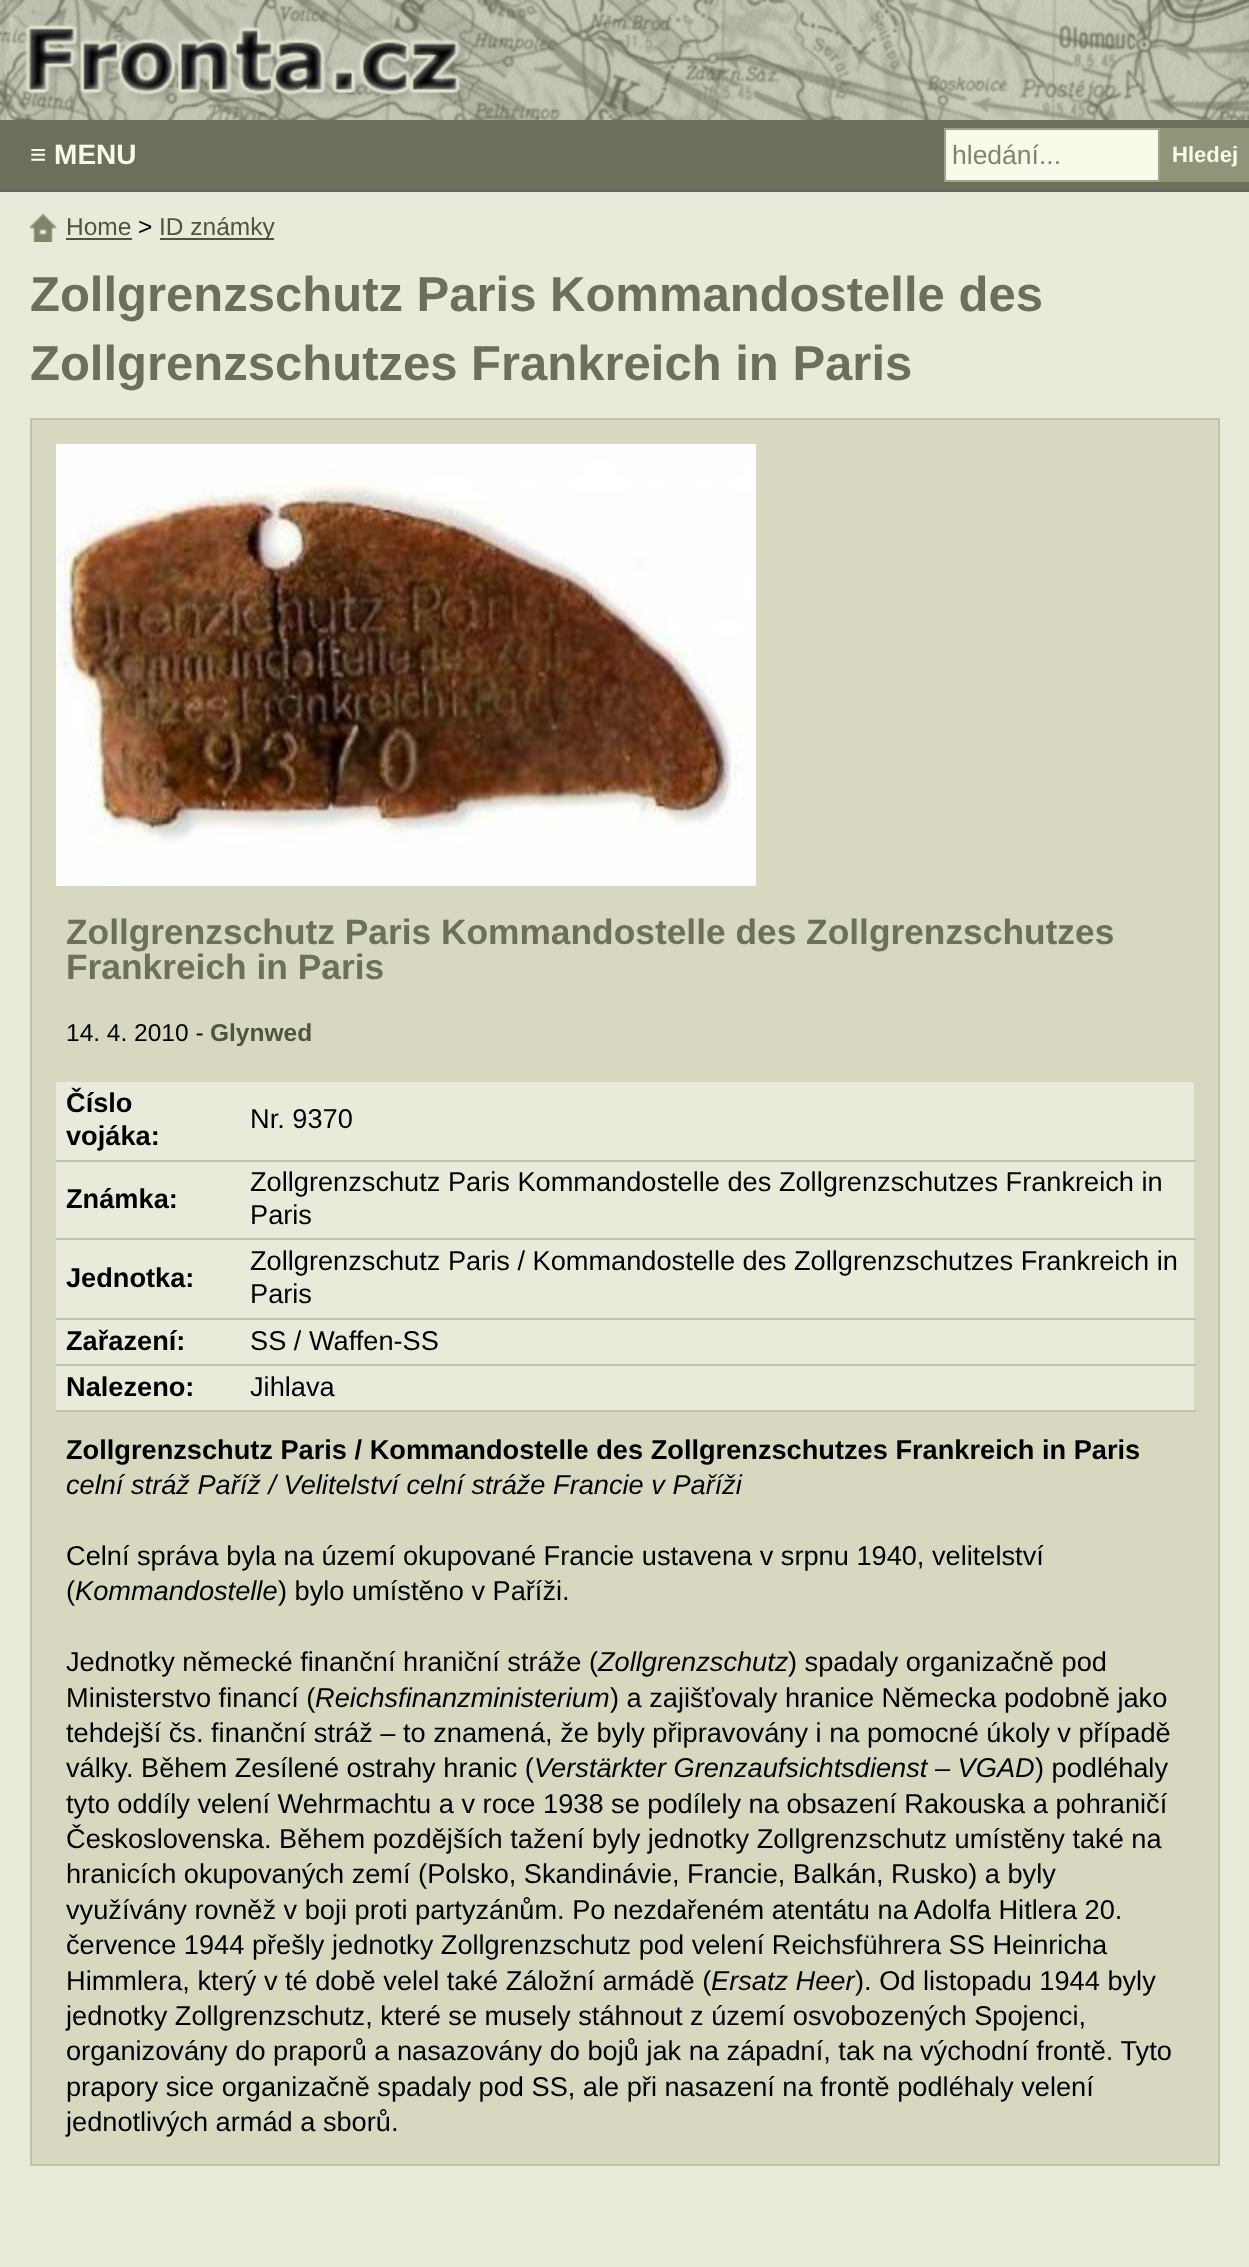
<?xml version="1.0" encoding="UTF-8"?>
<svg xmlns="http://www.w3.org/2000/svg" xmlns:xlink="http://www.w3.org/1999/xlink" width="1249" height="2267">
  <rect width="100%" height="100%" fill="#eaeadb" />
  <rect y="120" width="1249" height="70" fill="#6c705a" />
  <rect y="190" width="1249" height="2" fill="#666666" />
  <image x="30" y="214" width="27" height="28" xlink:href="image1.png" />
  <rect x="66" y="238" width="66" height="2" fill="#50553a" />
  <rect x="160" y="238" width="114" height="2" fill="#50553a" />
  <rect x="31" y="419" width="1188" height="1746" fill="#d8d8c1" stroke="#c0c5aa" stroke-width="2" />
  <image x="56" y="444" width="700" height="442" xlink:href="image2.png" />
  <rect x="56" y="1082" width="1138" height="78" fill="#eaeadb" />
  <rect x="56" y="1160" width="1140" height="2" fill="#c0c5aa" />
  <rect x="56" y="1162" width="1138" height="76" fill="#eaeadb" />
  <rect x="56" y="1238" width="1140" height="2" fill="#c0c5aa" />
  <rect x="56" y="1240" width="1138" height="78" fill="#eaeadb" />
  <rect x="56" y="1318" width="1140" height="2" fill="#c0c5aa" />
  <rect x="56" y="1320" width="1138" height="44" fill="#eaeadb" />
  <rect x="56" y="1364" width="1140" height="2" fill="#c0c5aa" />
  <rect x="56" y="1366" width="1138" height="44" fill="#eaeadb" />
  <rect x="56" y="1410" width="1140" height="2" fill="#c0c5aa" />
  <image x="0" y="0" width="1249" height="120" xlink:href="image3.png" />
  <rect x="945" y="129" width="214" height="52" fill="#fafaeb" stroke="#a0a58a" stroke-width="2" />
  <rect x="1160" y="128" width="89" height="54" fill="#90957a" />
  <text x="30" y="164" style="font-family: Liberation Sans; font-size: 28px; font-weight: bold; fill: #fafaeb">≡ MENU</text>
  <text x="66" y="235" style="font-family: Liberation Sans; font-size: 24.5px; fill: #50553a">Home</text>
  <text x="138" y="235" style="font-family: Liberation Sans; font-size: 24.5px; fill: #000000">&gt;</text>
  <text x="159" y="235" style="font-family: Liberation Sans; font-size: 24.5px; fill: #50553a">ID známky</text>
  <text x="30" y="311" style="font-family: Liberation Sans; font-size: 49px; font-weight: bold; fill: #6c705a">Zollgrenzschutz Paris Kommandostelle des</text>
  <text x="30" y="380" style="font-family: Liberation Sans; font-size: 49px; font-weight: bold; fill: #6c705a">Zollgrenzschutzes Frankreich in Paris</text>
  <text x="66" y="944" style="font-family: Liberation Sans; font-size: 35.35px; font-weight: bold; fill: #6c705a">Zollgrenzschutz Paris Kommandostelle des Zollgrenzschutzes</text>
  <text x="66" y="979" style="font-family: Liberation Sans; font-size: 35.35px; font-weight: bold; fill: #6c705a">Frankreich in Paris</text>
  <text x="66" y="1041" style="font-family: Liberation Sans; font-size: 24.5px; fill: #000000">14. 4. 2010 -</text>
  <text x="210" y="1041" style="font-family: Liberation Sans; font-size: 24.5px; font-weight: bold; fill: #50553a">Glynwed</text>
  <text x="66" y="1112" style="font-family: Liberation Sans; font-size: 27.2px; font-weight: bold; fill: #000000">Číslo</text>
  <text x="66" y="1145" style="font-family: Liberation Sans; font-size: 27.2px; font-weight: bold; fill: #000000">vojáka:</text>
  <text x="250" y="1128" style="font-family: Liberation Sans; font-size: 27.2px; fill: #000000">Nr. 9370</text>
  <text x="66" y="1208" style="font-family: Liberation Sans; font-size: 27.2px; font-weight: bold; fill: #000000">Známka:</text>
  <text x="250" y="1191" style="font-family: Liberation Sans; font-size: 27.2px; fill: #000000">Zollgrenzschutz Paris Kommandostelle des Zollgrenzschutzes Frankreich in</text>
  <text x="250" y="1224" style="font-family: Liberation Sans; font-size: 27.2px; fill: #000000">Paris</text>
  <text x="66" y="1287" style="font-family: Liberation Sans; font-size: 27.2px; font-weight: bold; fill: #000000">Jednotka:</text>
  <text x="250" y="1270" style="font-family: Liberation Sans; font-size: 27.2px; fill: #000000">Zollgrenzschutz Paris / Kommandostelle des Zollgrenzschutzes Frankreich in</text>
  <text x="250" y="1303" style="font-family: Liberation Sans; font-size: 27.2px; fill: #000000">Paris</text>
  <text x="66" y="1350" style="font-family: Liberation Sans; font-size: 27.2px; font-weight: bold; fill: #000000">Zařazení:</text>
  <text x="250" y="1350" style="font-family: Liberation Sans; font-size: 27.2px; fill: #000000">SS / Waffen-SS</text>
  <text x="66" y="1396" style="font-family: Liberation Sans; font-size: 27.2px; font-weight: bold; fill: #000000">Nalezeno:</text>
  <text x="250" y="1396" style="font-family: Liberation Sans; font-size: 27.2px; fill: #000000">Jihlava</text>
  <text x="66" y="1459" style="font-family: Liberation Sans; font-size: 27.2px; font-weight: bold; fill: #000000">Zollgrenzschutz Paris / Kommandostelle des Zollgrenzschutzes Frankreich in Paris</text>
  <text x="66" y="1494" style="font-family: Liberation Sans; font-size: 27.2px; font-style: italic; fill: #000000">celní stráž Paříž / Velitelství celní stráže Francie v Paříži</text>
  <text x="66" y="1565" style="font-family: Liberation Sans; font-size: 27.2px; fill: #000000">Celní správa byla na území okupované Francie ustavena v srpnu 1940, velitelství</text>
  <text x="66" y="1600" style="font-family: Liberation Sans; font-size: 27.2px; fill: #000000">(</text>
  <text x="75" y="1600" style="font-family: Liberation Sans; font-size: 27.2px; font-style: italic; fill: #000000">Kommandostelle</text>
  <text x="278" y="1600" style="font-family: Liberation Sans; font-size: 27.2px; fill: #000000">) bylo umístěno v Paříži.</text>
  <text x="66" y="1671" style="font-family: Liberation Sans; font-size: 27.2px; fill: #000000">Jednotky německé finanční hraniční stráže (</text>
  <text x="598" y="1671" style="font-family: Liberation Sans; font-size: 27.2px; font-style: italic; fill: #000000">Zollgrenzschutz</text>
  <text x="788" y="1671" style="font-family: Liberation Sans; font-size: 27.2px; fill: #000000">) spadaly organizačně pod</text>
  <text x="66" y="1707" style="font-family: Liberation Sans; font-size: 27.2px; fill: #000000">Ministerstvo financí (</text>
  <text x="315" y="1707" style="font-family: Liberation Sans; font-size: 27.2px; font-style: italic; fill: #000000">Reichsfinanzministerium</text>
  <text x="610" y="1707" style="font-family: Liberation Sans; font-size: 27.2px; fill: #000000">) a zajišťovaly hranice Německa podobně jako</text>
  <text x="66" y="1742" style="font-family: Liberation Sans; font-size: 27.2px; fill: #000000">tehdejší čs. finanční stráž – to znamená, že byly připravovány i na pomocné úkoly v případě</text>
  <text x="66" y="1777" style="font-family: Liberation Sans; font-size: 27.2px; fill: #000000">války. Během Zesílené ostrahy hranic (</text>
  <text x="534" y="1777" style="font-family: Liberation Sans; font-size: 27.2px; font-style: italic; fill: #000000">Verstärkter Grenzaufsichtsdienst – VGAD</text>
  <text x="1035" y="1777" style="font-family: Liberation Sans; font-size: 27.2px; fill: #000000">) podléhaly</text>
  <text x="66" y="1813" style="font-family: Liberation Sans; font-size: 27.2px; fill: #000000">tyto oddíly velení Wehrmachtu a v roce 1938 se podílely na obsazení Rakouska a pohraničí</text>
  <text x="66" y="1848" style="font-family: Liberation Sans; font-size: 27.2px; fill: #000000">Československa. Během pozdějších tažení byly jednotky Zollgrenzschutz umístěny také na</text>
  <text x="66" y="1883" style="font-family: Liberation Sans; font-size: 27.2px; fill: #000000">hranicích okupovaných zemí (Polsko, Skandinávie, Francie, Balkán, Rusko) a byly</text>
  <text x="66" y="1919" style="font-family: Liberation Sans; font-size: 27.2px; fill: #000000">využívány rovněž v boji proti partyzánům. Po nezdařeném atentátu na Adolfa Hitlera 20.</text>
  <text x="66" y="1954" style="font-family: Liberation Sans; font-size: 27.2px; fill: #000000">července 1944 přešly jednotky Zollgrenzschutz pod velení Reichsführera SS Heinricha</text>
  <text x="66" y="1990" style="font-family: Liberation Sans; font-size: 27.2px; fill: #000000">Himmlera, který v té době velel také Záložní armádě (</text>
  <text x="711" y="1990" style="font-family: Liberation Sans; font-size: 27.2px; font-style: italic; fill: #000000">Ersatz Heer</text>
  <text x="855" y="1990" style="font-family: Liberation Sans; font-size: 27.2px; fill: #000000">). Od listopadu 1944 byly</text>
  <text x="66" y="2025" style="font-family: Liberation Sans; font-size: 27.2px; fill: #000000">jednotky Zollgrenzschutz, které se musely stáhnout z území osvobozených Spojenci,</text>
  <text x="66" y="2060" style="font-family: Liberation Sans; font-size: 27.2px; fill: #000000">organizovány do praporů a nasazovány do bojů jak na západní, tak na východní frontě. Tyto</text>
  <text x="66" y="2096" style="font-family: Liberation Sans; font-size: 27.2px; fill: #000000">prapory sice organizačně spadaly pod SS, ale při nasazení na frontě podléhaly velení</text>
  <text x="66" y="2131" style="font-family: Liberation Sans; font-size: 27.2px; fill: #000000">jednotlivých armád a sborů.</text>
  <text x="952" y="164" style="font-family: Liberation Sans; font-size: 26.5px; fill: #80856a">hledání...</text>
  <text x="1172" y="162" style="font-family: Liberation Sans; font-size: 22px; font-weight: bold; fill: #fafaeb">Hledej</text>
</svg>
